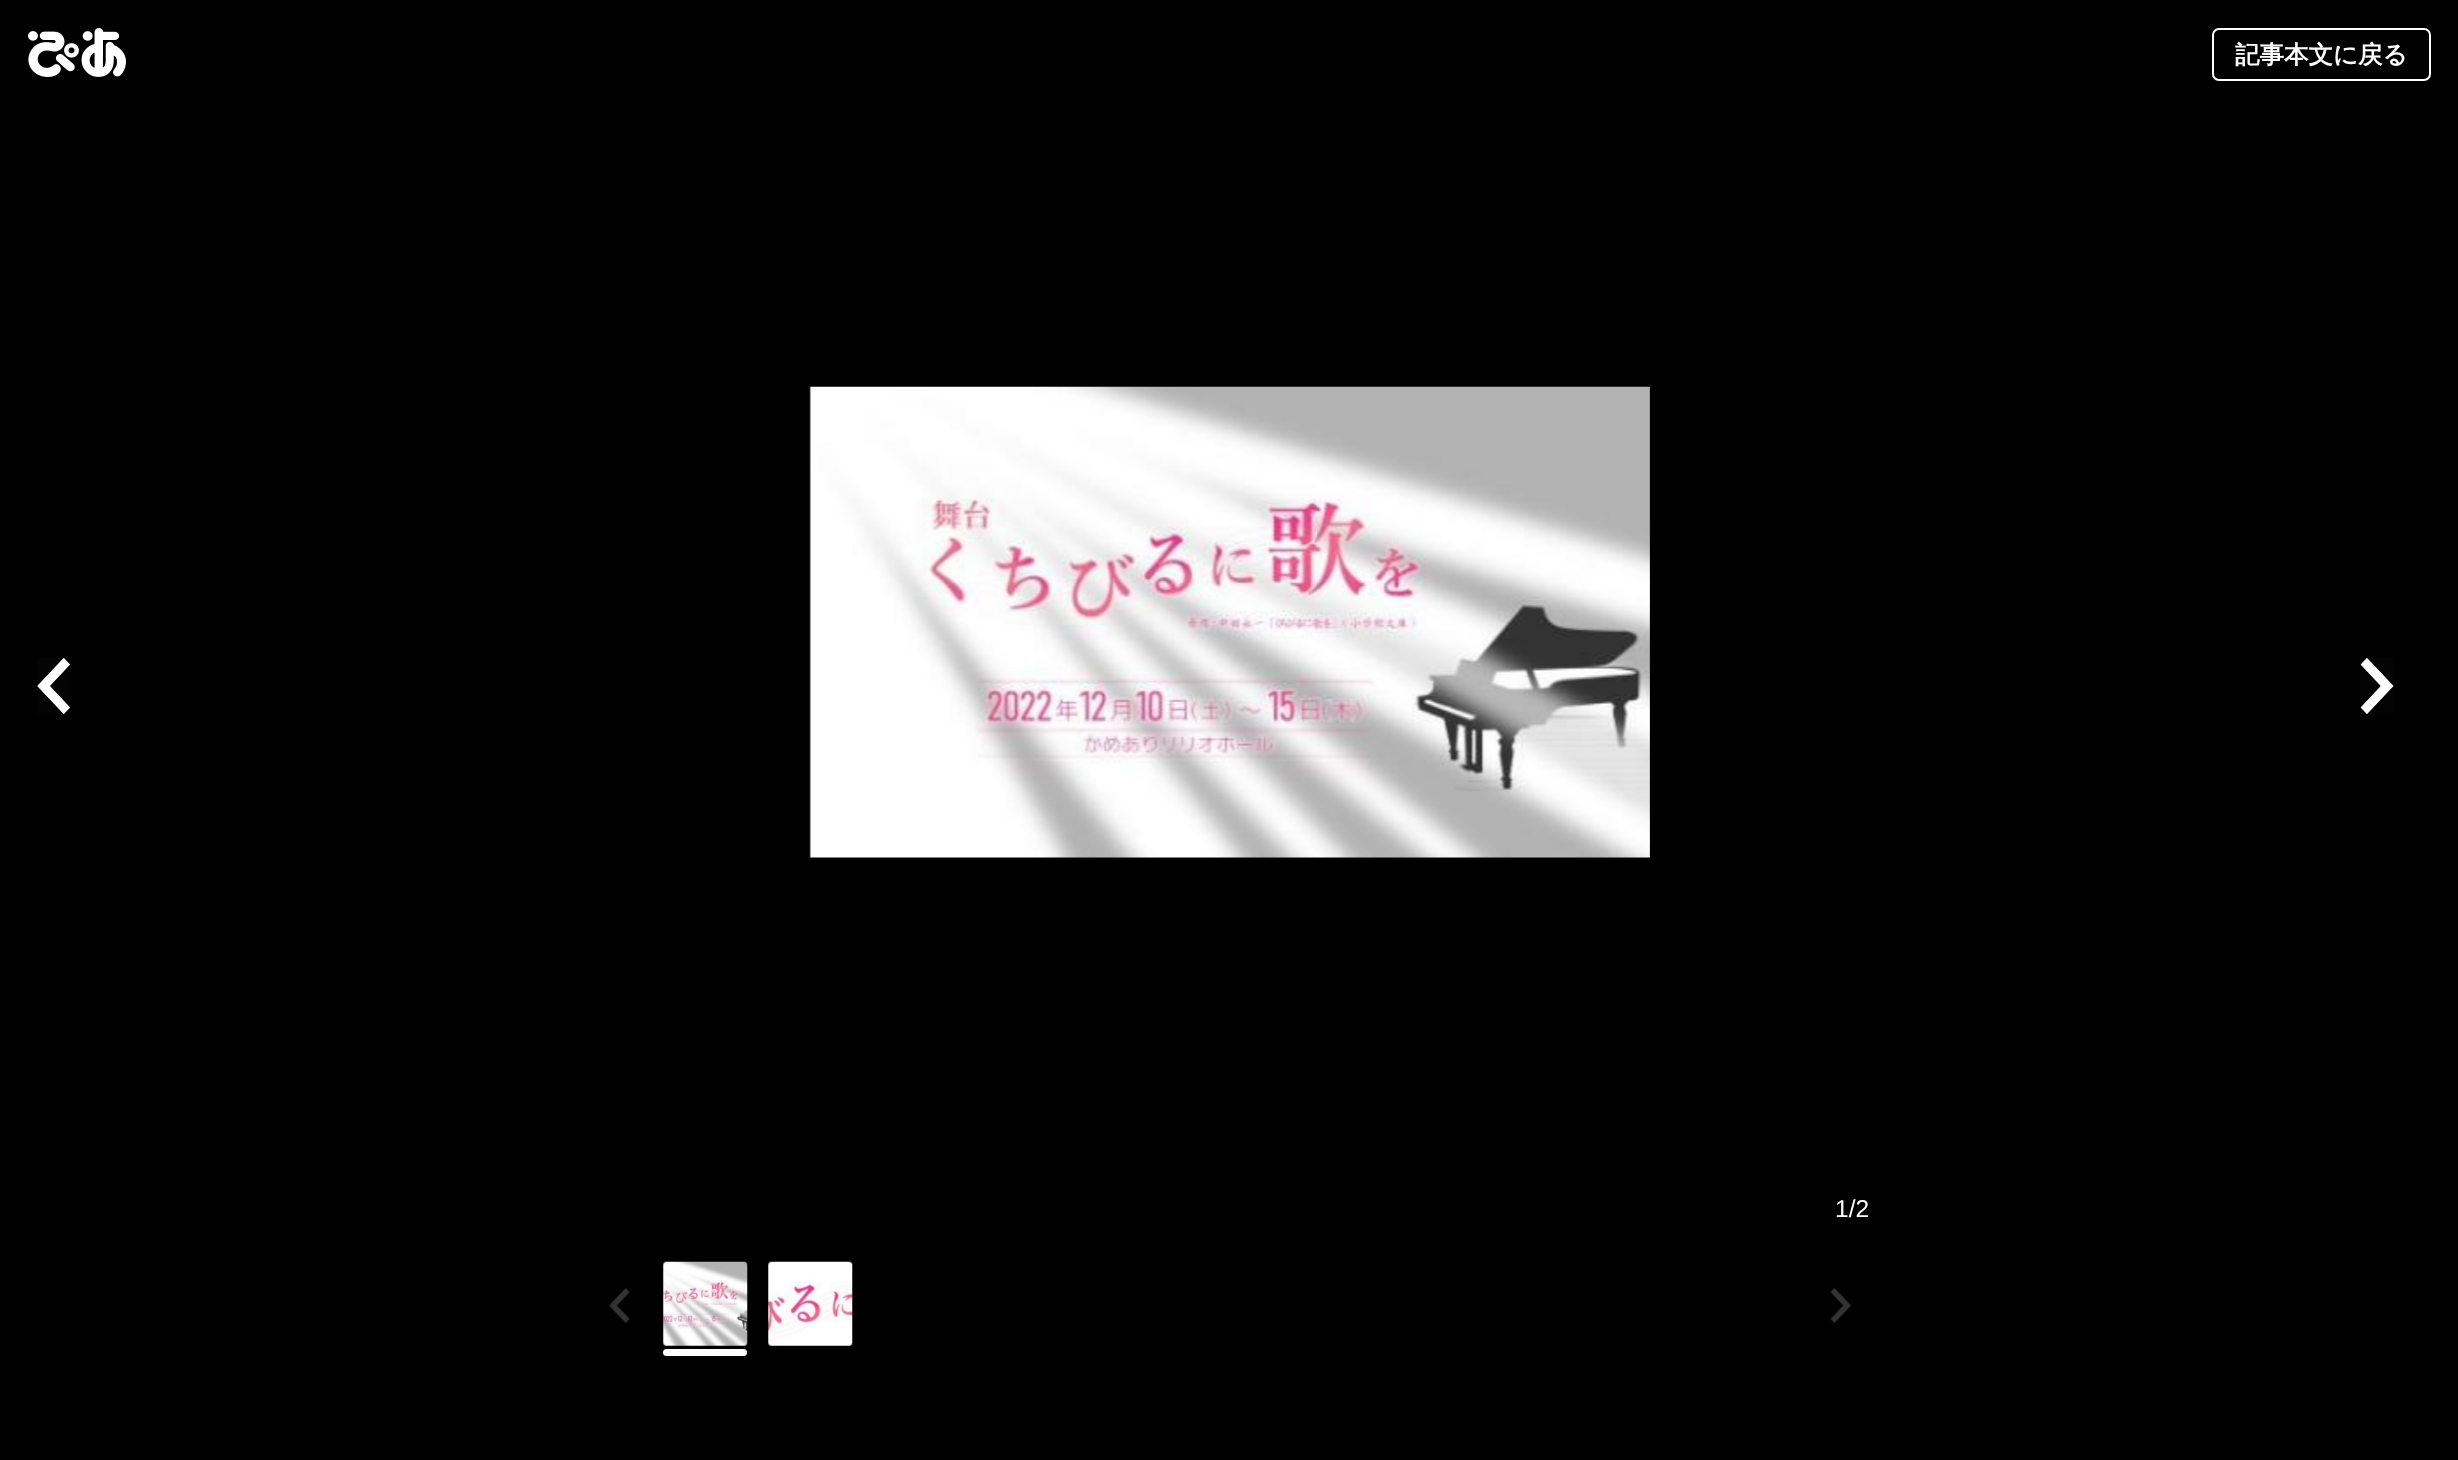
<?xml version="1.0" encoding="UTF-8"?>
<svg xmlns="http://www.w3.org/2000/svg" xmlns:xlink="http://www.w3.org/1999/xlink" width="2458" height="1460">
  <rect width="100%" height="100%" fill="#000000" />
  <image x="28" y="28" width="98" height="49" xlink:href="image1.png" />
  <rect x="2213" y="29" width="217" height="51" rx="6" fill="none" stroke="#ffffff" stroke-width="2" />
  <image x="37" y="658" width="33" height="56" xlink:href="image2.png" />
  <image x="2360" y="658" width="34" height="56" xlink:href="image3.png" />
  <image x="809" y="386" width="841" height="472" xlink:href="image4.png" />
  <image x="609" y="1288" width="21" height="35" xlink:href="image5.png" />
  <image x="663" y="1261" width="85" height="85" xlink:href="image6.png" />
  <rect x="663" y="1349" width="84" height="7" rx="3.5" fill="#ffffff" />
  <image x="768" y="1261" width="85" height="85" xlink:href="image7.png" />
  <image x="1830" y="1288" width="21" height="35" xlink:href="image8.png" />
  <text x="2235" y="63" style="font-family: WenQuanYi Zen Hei; font-size: 24.5px; font-weight: bold; fill: #ffffff">記事本文に戻る</text>
  <text x="1835" y="1217" style="font-family: Liberation Sans; font-size: 24.5px; fill: #ffffff">1/2</text>
</svg>
